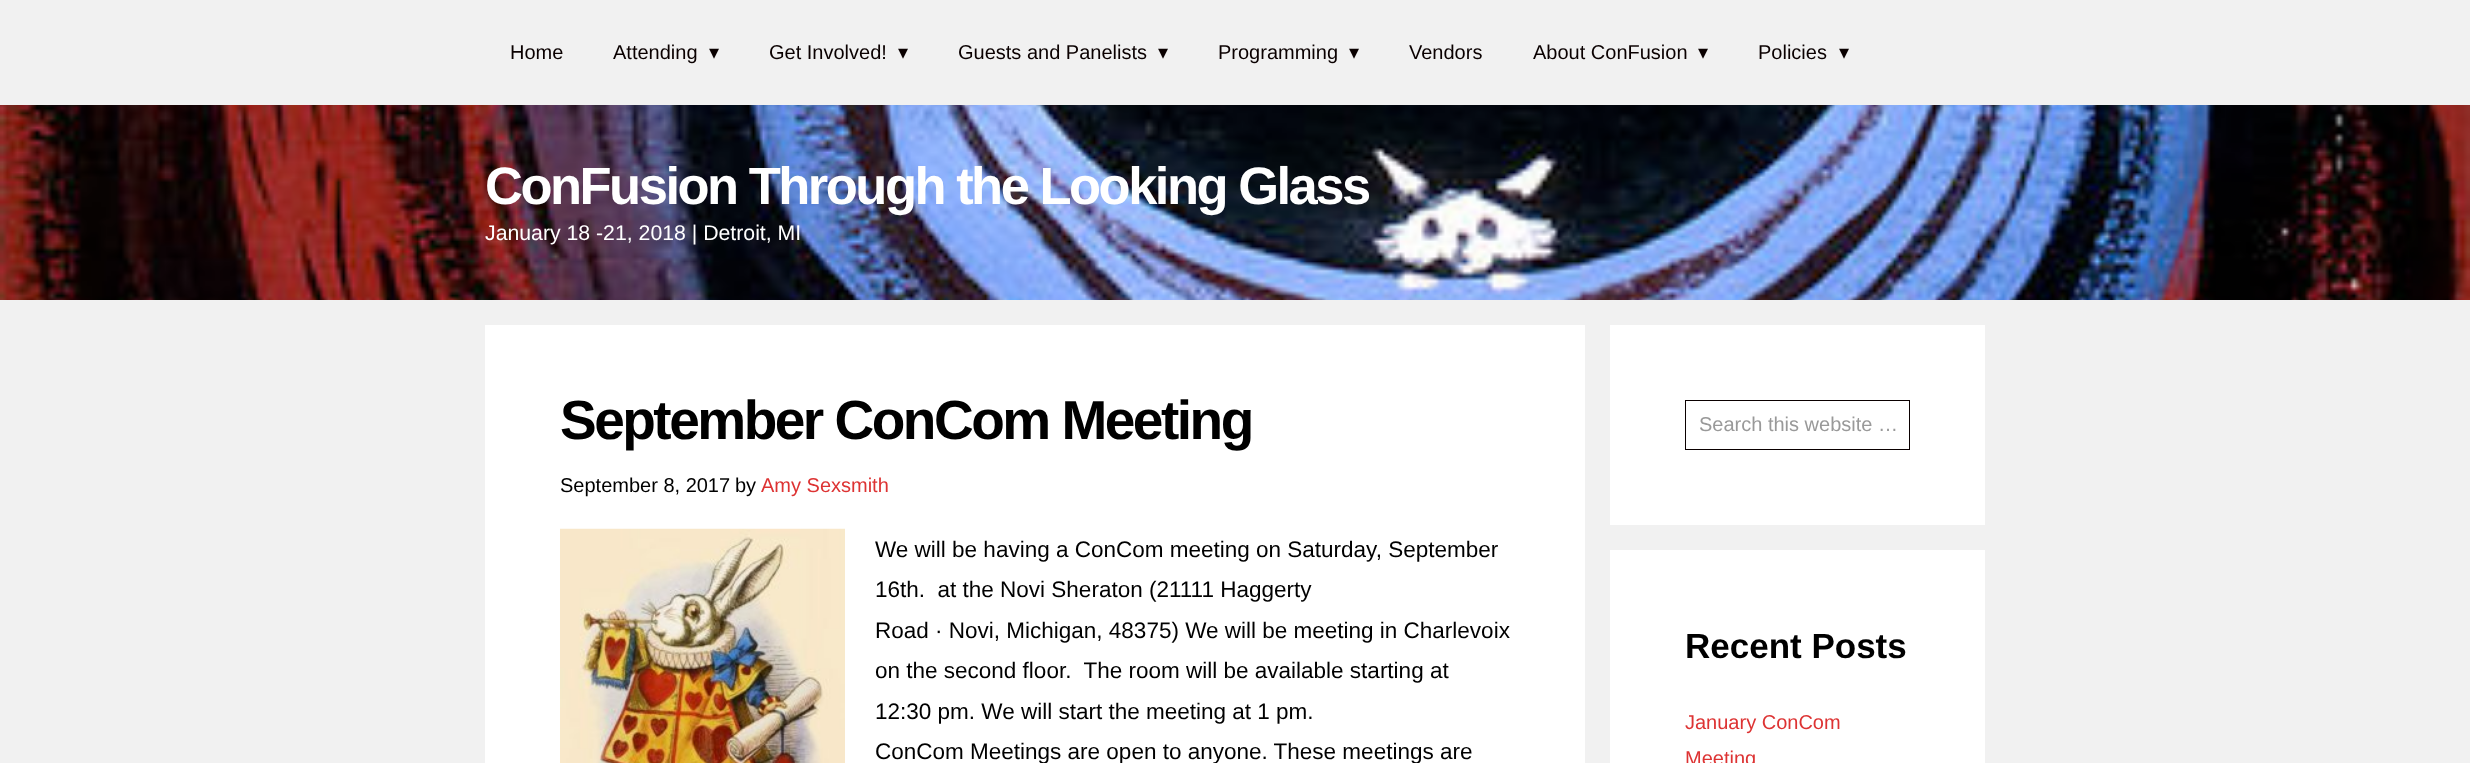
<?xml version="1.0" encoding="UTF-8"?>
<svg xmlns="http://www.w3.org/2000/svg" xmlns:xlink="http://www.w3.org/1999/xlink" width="2470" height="763">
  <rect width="100%" height="100%" fill="#f1f1f1" />
  <image x="0" y="105" width="2470" height="195" xlink:href="image1.png" />
  <rect x="485" y="325" width="1100" height="438" fill="#ffffff" />
  <image x="560" y="528" width="285" height="235" xlink:href="image2.png" />
  <rect x="1610" y="325" width="375" height="200" fill="#ffffff" />
  <rect x="1685.5" y="400.5" width="224" height="49" fill="none" stroke="#0a0000" />
  <rect x="1610" y="550" width="375" height="213" fill="#ffffff" />
  <text x="510" y="59" style="font-family: Liberation Sans; font-size: 20px; fill: #0a0000">Home</text>
  <text x="613" y="59" style="font-family: Liberation Sans; font-size: 20px; fill: #0a0000">Attending</text>
  <text x="709" y="59" style="font-family: DejaVu Sans; font-size: 20px; fill: #0a0000">▾</text>
  <text x="769" y="59" style="font-family: Liberation Sans; font-size: 20px; fill: #0a0000">Get Involved!</text>
  <text x="898" y="59" style="font-family: DejaVu Sans; font-size: 20px; fill: #0a0000">▾</text>
  <text x="958" y="59" style="font-family: Liberation Sans; font-size: 20px; fill: #0a0000">Guests and Panelists</text>
  <text x="1158" y="59" style="font-family: DejaVu Sans; font-size: 20px; fill: #0a0000">▾</text>
  <text x="1218" y="59" style="font-family: Liberation Sans; font-size: 20px; fill: #0a0000">Programming</text>
  <text x="1349" y="59" style="font-family: DejaVu Sans; font-size: 20px; fill: #0a0000">▾</text>
  <text x="1409" y="59" style="font-family: Liberation Sans; font-size: 20px; fill: #0a0000">Vendors</text>
  <text x="1533" y="59" style="font-family: Liberation Sans; font-size: 20px; fill: #0a0000">About ConFusion</text>
  <text x="1698" y="59" style="font-family: DejaVu Sans; font-size: 20px; fill: #0a0000">▾</text>
  <text x="1758" y="59" style="font-family: Liberation Sans; font-size: 20px; fill: #0a0000">Policies</text>
  <text x="1839" y="59" style="font-family: DejaVu Sans; font-size: 20px; fill: #0a0000">▾</text>
  <text x="485" y="204" style="font-family: Liberation Sans; font-size: 52.5px; font-weight: bold; letter-spacing: -2.5px; fill: #ffffff">ConFusion Through the Looking Glass</text>
  <text x="485" y="240" style="font-family: Liberation Sans; font-size: 21.25px; fill: #ffffff">January 18 -21, 2018 | Detroit, MI</text>
  <text x="560" y="439" style="font-family: Liberation Sans; font-size: 55px; font-weight: bold; letter-spacing: -2.5px; fill: #000000">September ConCom Meeting</text>
  <text x="560" y="492" style="font-family: Liberation Sans; font-size: 20px; fill: #000000">September 8, 2017</text>
  <text x="735" y="492" style="font-family: Liberation Sans; font-size: 20px; fill: #000000">by</text>
  <text x="761" y="492" style="font-family: Liberation Sans; font-size: 20px; fill: #dd3333">Amy Sexsmith</text>
  <text x="875" y="557" style="font-family: Liberation Sans; font-size: 22.5px; fill: #000000">We will be having a ConCom meeting on Saturday, September</text>
  <text x="875" y="597" style="font-family: Liberation Sans; font-size: 22.5px; fill: #000000" xml:space="preserve">16th.  at the Novi Sheraton (21111 Haggerty</text>
  <text x="875" y="638" style="font-family: Liberation Sans; font-size: 22.5px; fill: #000000">Road · Novi, Michigan, 48375) We will be meeting in Charlevoix</text>
  <text x="875" y="678" style="font-family: Liberation Sans; font-size: 22.5px; fill: #000000" xml:space="preserve">on the second floor.  The room will be available starting at</text>
  <text x="875" y="719" style="font-family: Liberation Sans; font-size: 22.5px; fill: #000000">12:30 pm. We will start the meeting at 1 pm.</text>
  <text x="875" y="759" style="font-family: Liberation Sans; font-size: 22.5px; fill: #000000">ConCom Meetings are open to anyone. These meetings are</text>
  <text x="1699" y="431" style="font-family: Liberation Sans; font-size: 20px; fill: #999999">Search this website …</text>
  <text x="1685" y="658" style="font-family: Liberation Sans; font-size: 35px; font-weight: bold; fill: #000000">Recent Posts</text>
  <text x="1685" y="729" style="font-family: Liberation Sans; font-size: 20px; fill: #dd3333">January ConCom</text>
  <text x="1685" y="765" style="font-family: Liberation Sans; font-size: 20px; fill: #dd3333">Meeting</text>
</svg>
